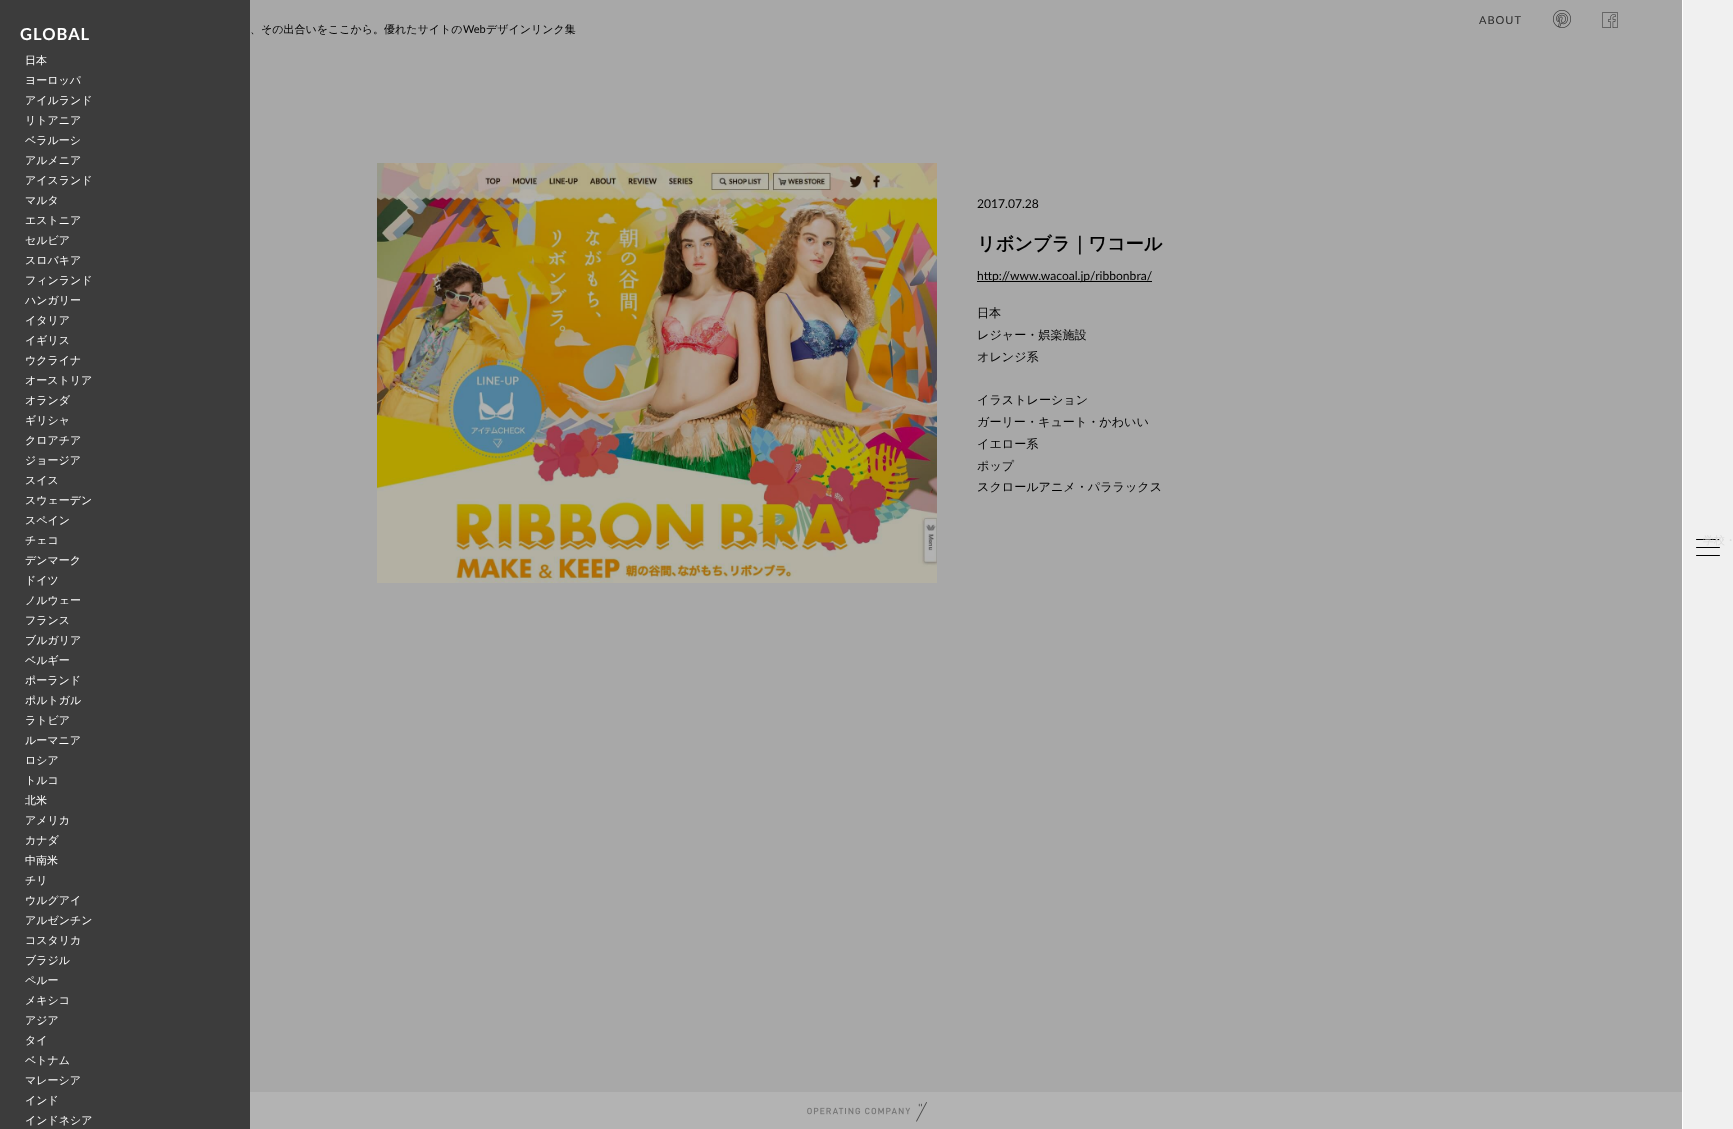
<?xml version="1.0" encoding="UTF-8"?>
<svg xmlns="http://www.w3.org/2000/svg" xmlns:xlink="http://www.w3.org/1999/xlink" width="1733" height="1129">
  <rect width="100%" height="100%" fill="#a8a8a8" />
  <rect width="250" height="1129" fill="#3c3c3c" />
  <image x="1553" y="10" width="18" height="18" xlink:href="image1.png" />
  <image x="1602" y="12" width="16" height="16" xlink:href="image2.png" />
  <rect x="1683" width="50" height="1129" fill="#f0f0f0" />
  <rect x="1682" width="1" height="1129" fill="#ffffff" />
  <rect x="1696" y="539" width="24" height="1" rx="0.5" fill="#000000" />
  <rect x="1696" y="547" width="24" height="1" rx="0.5" fill="#000000" />
  <rect x="1696" y="555" width="24" height="1" rx="0.5" fill="#000000" />
  <image x="377" y="163" width="560" height="420" xlink:href="image3.png" />
  <rect x="977" y="281" width="175" height="1" fill="#000000" />
  <rect x="250" y="1092" width="1432" height="37" fill="#b3b3b3" />
  <image x="807" y="1102" width="120" height="20" xlink:href="image4.png" />
  <text x="20" y="40" style="font-family: Lato; font-size: 16.5px; font-weight: bold; letter-spacing: 1px; fill: #ffffff">GLOBAL</text>
  <text x="25" y="64" style="font-family: WenQuanYi Zen Hei; font-size: 11px; font-weight: 500; fill: #ffffff">日本</text>
  <text x="25" y="84" style="font-family: WenQuanYi Zen Hei; font-size: 11px; font-weight: 500; fill: #ffffff">ヨーロッパ</text>
  <text x="25" y="104" style="font-family: WenQuanYi Zen Hei; font-size: 11px; font-weight: 500; fill: #ffffff">アイルランド</text>
  <text x="25" y="124" style="font-family: WenQuanYi Zen Hei; font-size: 11px; font-weight: 500; fill: #ffffff">リトアニア</text>
  <text x="25" y="144" style="font-family: WenQuanYi Zen Hei; font-size: 11px; font-weight: 500; fill: #ffffff">ベラルーシ</text>
  <text x="25" y="164" style="font-family: WenQuanYi Zen Hei; font-size: 11px; font-weight: 500; fill: #ffffff">アルメニア</text>
  <text x="25" y="184" style="font-family: WenQuanYi Zen Hei; font-size: 11px; font-weight: 500; fill: #ffffff">アイスランド</text>
  <text x="25" y="204" style="font-family: WenQuanYi Zen Hei; font-size: 11px; font-weight: 500; fill: #ffffff">マルタ</text>
  <text x="25" y="224" style="font-family: WenQuanYi Zen Hei; font-size: 11px; font-weight: 500; fill: #ffffff">エストニア</text>
  <text x="25" y="244" style="font-family: WenQuanYi Zen Hei; font-size: 11px; font-weight: 500; fill: #ffffff">セルビア</text>
  <text x="25" y="264" style="font-family: WenQuanYi Zen Hei; font-size: 11px; font-weight: 500; fill: #ffffff">スロバキア</text>
  <text x="25" y="284" style="font-family: WenQuanYi Zen Hei; font-size: 11px; font-weight: 500; fill: #ffffff">フィンランド</text>
  <text x="25" y="304" style="font-family: WenQuanYi Zen Hei; font-size: 11px; font-weight: 500; fill: #ffffff">ハンガリー</text>
  <text x="25" y="324" style="font-family: WenQuanYi Zen Hei; font-size: 11px; font-weight: 500; fill: #ffffff">イタリア</text>
  <text x="25" y="344" style="font-family: WenQuanYi Zen Hei; font-size: 11px; font-weight: 500; fill: #ffffff">イギリス</text>
  <text x="25" y="364" style="font-family: WenQuanYi Zen Hei; font-size: 11px; font-weight: 500; fill: #ffffff">ウクライナ</text>
  <text x="25" y="384" style="font-family: WenQuanYi Zen Hei; font-size: 11px; font-weight: 500; fill: #ffffff">オーストリア</text>
  <text x="25" y="404" style="font-family: WenQuanYi Zen Hei; font-size: 11px; font-weight: 500; fill: #ffffff">オランダ</text>
  <text x="25" y="424" style="font-family: WenQuanYi Zen Hei; font-size: 11px; font-weight: 500; fill: #ffffff">ギリシャ</text>
  <text x="25" y="444" style="font-family: WenQuanYi Zen Hei; font-size: 11px; font-weight: 500; fill: #ffffff">クロアチア</text>
  <text x="25" y="464" style="font-family: WenQuanYi Zen Hei; font-size: 11px; font-weight: 500; fill: #ffffff">ジョージア</text>
  <text x="25" y="484" style="font-family: WenQuanYi Zen Hei; font-size: 11px; font-weight: 500; fill: #ffffff">スイス</text>
  <text x="25" y="504" style="font-family: WenQuanYi Zen Hei; font-size: 11px; font-weight: 500; fill: #ffffff">スウェーデン</text>
  <text x="25" y="524" style="font-family: WenQuanYi Zen Hei; font-size: 11px; font-weight: 500; fill: #ffffff">スペイン</text>
  <text x="25" y="544" style="font-family: WenQuanYi Zen Hei; font-size: 11px; font-weight: 500; fill: #ffffff">チェコ</text>
  <text x="25" y="564" style="font-family: WenQuanYi Zen Hei; font-size: 11px; font-weight: 500; fill: #ffffff">デンマーク</text>
  <text x="25" y="584" style="font-family: WenQuanYi Zen Hei; font-size: 11px; font-weight: 500; fill: #ffffff">ドイツ</text>
  <text x="25" y="604" style="font-family: WenQuanYi Zen Hei; font-size: 11px; font-weight: 500; fill: #ffffff">ノルウェー</text>
  <text x="25" y="624" style="font-family: WenQuanYi Zen Hei; font-size: 11px; font-weight: 500; fill: #ffffff">フランス</text>
  <text x="25" y="644" style="font-family: WenQuanYi Zen Hei; font-size: 11px; font-weight: 500; fill: #ffffff">ブルガリア</text>
  <text x="25" y="664" style="font-family: WenQuanYi Zen Hei; font-size: 11px; font-weight: 500; fill: #ffffff">ベルギー</text>
  <text x="25" y="684" style="font-family: WenQuanYi Zen Hei; font-size: 11px; font-weight: 500; fill: #ffffff">ポーランド</text>
  <text x="25" y="704" style="font-family: WenQuanYi Zen Hei; font-size: 11px; font-weight: 500; fill: #ffffff">ポルトガル</text>
  <text x="25" y="724" style="font-family: WenQuanYi Zen Hei; font-size: 11px; font-weight: 500; fill: #ffffff">ラトビア</text>
  <text x="25" y="744" style="font-family: WenQuanYi Zen Hei; font-size: 11px; font-weight: 500; fill: #ffffff">ルーマニア</text>
  <text x="25" y="764" style="font-family: WenQuanYi Zen Hei; font-size: 11px; font-weight: 500; fill: #ffffff">ロシア</text>
  <text x="25" y="784" style="font-family: WenQuanYi Zen Hei; font-size: 11px; font-weight: 500; fill: #ffffff">トルコ</text>
  <text x="25" y="804" style="font-family: WenQuanYi Zen Hei; font-size: 11px; font-weight: 500; fill: #ffffff">北米</text>
  <text x="25" y="824" style="font-family: WenQuanYi Zen Hei; font-size: 11px; font-weight: 500; fill: #ffffff">アメリカ</text>
  <text x="25" y="844" style="font-family: WenQuanYi Zen Hei; font-size: 11px; font-weight: 500; fill: #ffffff">カナダ</text>
  <text x="25" y="864" style="font-family: WenQuanYi Zen Hei; font-size: 11px; font-weight: 500; fill: #ffffff">中南米</text>
  <text x="25" y="884" style="font-family: WenQuanYi Zen Hei; font-size: 11px; font-weight: 500; fill: #ffffff">チリ</text>
  <text x="25" y="904" style="font-family: WenQuanYi Zen Hei; font-size: 11px; font-weight: 500; fill: #ffffff">ウルグアイ</text>
  <text x="25" y="924" style="font-family: WenQuanYi Zen Hei; font-size: 11px; font-weight: 500; fill: #ffffff">アルゼンチン</text>
  <text x="25" y="944" style="font-family: WenQuanYi Zen Hei; font-size: 11px; font-weight: 500; fill: #ffffff">コスタリカ</text>
  <text x="25" y="964" style="font-family: WenQuanYi Zen Hei; font-size: 11px; font-weight: 500; fill: #ffffff">ブラジル</text>
  <text x="25" y="984" style="font-family: WenQuanYi Zen Hei; font-size: 11px; font-weight: 500; fill: #ffffff">ペルー</text>
  <text x="25" y="1004" style="font-family: WenQuanYi Zen Hei; font-size: 11px; font-weight: 500; fill: #ffffff">メキシコ</text>
  <text x="25" y="1024" style="font-family: WenQuanYi Zen Hei; font-size: 11px; font-weight: 500; fill: #ffffff">アジア</text>
  <text x="25" y="1044" style="font-family: WenQuanYi Zen Hei; font-size: 11px; font-weight: 500; fill: #ffffff">タイ</text>
  <text x="25" y="1064" style="font-family: WenQuanYi Zen Hei; font-size: 11px; font-weight: 500; fill: #ffffff">ベトナム</text>
  <text x="25" y="1084" style="font-family: WenQuanYi Zen Hei; font-size: 11px; font-weight: 500; fill: #ffffff">マレーシア</text>
  <text x="25" y="1104" style="font-family: WenQuanYi Zen Hei; font-size: 11px; font-weight: 500; fill: #ffffff">インド</text>
  <text x="25" y="1124" style="font-family: WenQuanYi Zen Hei; font-size: 11px; font-weight: 500; fill: #ffffff">インドネシア</text>
  <text x="1479" y="24" style="font-family: Lato; font-size: 11px; letter-spacing: 1px; fill: #2b2b2b">ABOUT</text>
  <text x="250" y="33" style="font-family: WenQuanYi Zen Hei; font-size: 11px; font-weight: 500; fill: #000000">、その出合いをここから。優れたサイトの</text>
  <text x="463" y="33" style="font-family: Lato; font-size: 11px; fill: #000000">Web</text>
  <text x="486" y="33" style="font-family: WenQuanYi Zen Hei; font-size: 11px; font-weight: 500; fill: #000000">デザインリンク集</text>
  <text x="977" y="208" style="font-family: Lato; font-size: 12.1px; fill: #000000">2017.07.28</text>
  <text x="977" y="250" style="font-family: WenQuanYi Zen Hei; font-size: 18.25px; font-weight: bold; fill: #000000">リボンブラ｜ワコール</text>
  <text x="977" y="280" style="font-family: Lato; font-size: 12.1px; fill: #000000">http://www.wacoal.jp/ribbonbra/</text>
  <text x="977" y="317" style="font-family: WenQuanYi Zen Hei; font-size: 12.1px; font-weight: 500; fill: #000000">日本</text>
  <text x="977" y="339" style="font-family: WenQuanYi Zen Hei; font-size: 12.1px; font-weight: 500; fill: #000000">レジャー・娯楽施設</text>
  <text x="977" y="361" style="font-family: WenQuanYi Zen Hei; font-size: 12.1px; font-weight: 500; fill: #000000">オレンジ系</text>
  <text x="977" y="404" style="font-family: WenQuanYi Zen Hei; font-size: 12.1px; font-weight: 500; fill: #000000">イラストレーション</text>
  <text x="977" y="426" style="font-family: WenQuanYi Zen Hei; font-size: 12.1px; font-weight: 500; fill: #000000">ガーリー・キュート・かわいい</text>
  <text x="977" y="448" style="font-family: WenQuanYi Zen Hei; font-size: 12.1px; font-weight: 500; fill: #000000">イエロー系</text>
  <text x="977" y="470" style="font-family: WenQuanYi Zen Hei; font-size: 12.1px; font-weight: 500; fill: #000000">ポップ</text>
  <text x="977" y="491" style="font-family: WenQuanYi Zen Hei; font-size: 12.1px; font-weight: 500; fill: #000000">スクロールアニメ・パララックス</text>
  <text x="1703" y="544" style="font-family: WenQuanYi Zen Hei; font-size: 11px; font-weight: 500; fill: #dadada">学校・</text>
</svg>
